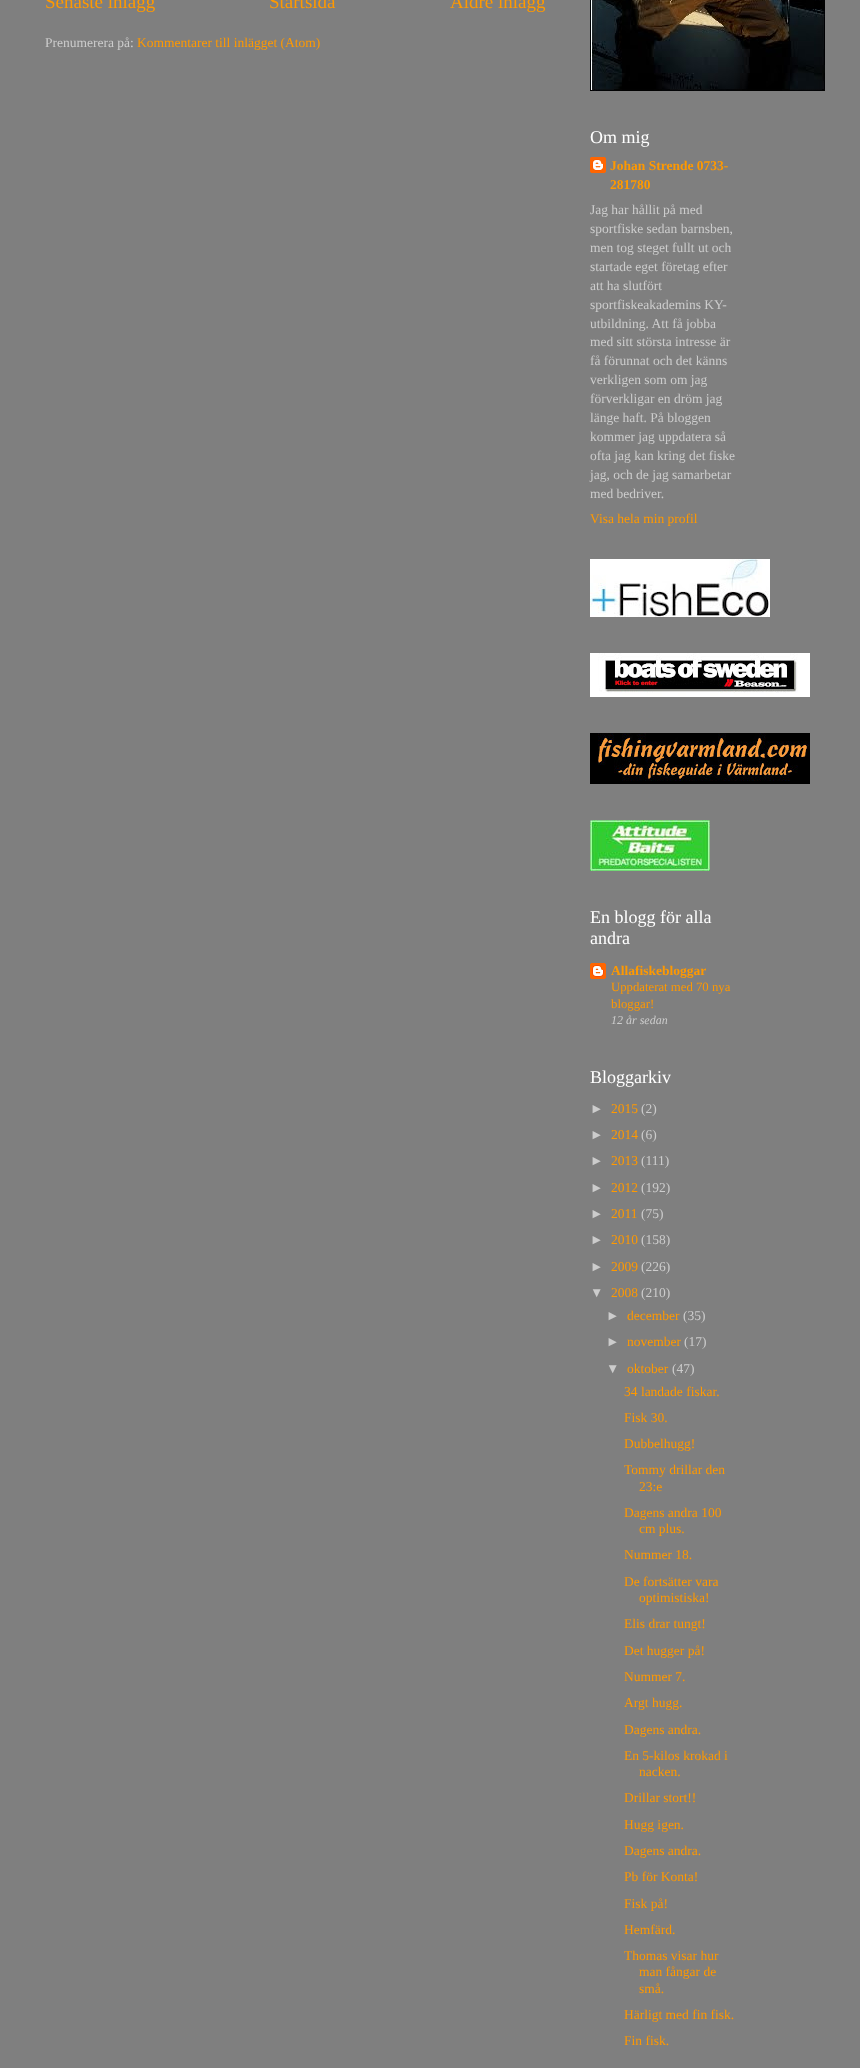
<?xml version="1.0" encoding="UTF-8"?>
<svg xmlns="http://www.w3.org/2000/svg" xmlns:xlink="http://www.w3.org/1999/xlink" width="860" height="2068">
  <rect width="100%" height="100%" fill="#7f7f7f" />
  <image x="590" y="0" width="235" height="91" xlink:href="image1.png" />
  <image x="590" y="157" width="16" height="16" xlink:href="image2.png" />
  <image x="590" y="559" width="180" height="58" xlink:href="image3.png" />
  <image x="590" y="653" width="220" height="44" xlink:href="image4.png" />
  <image x="590" y="733" width="220" height="51" xlink:href="image5.png" />
  <image x="590" y="820" width="120" height="51" xlink:href="image6.png" />
  <image x="590" y="963" width="16" height="16" xlink:href="image7.png" />
  <text x="45" y="8" style="font-family: Liberation Serif; font-size: 19px; fill: #ff9900">Senaste inlägg</text>
  <text x="269" y="8" style="font-family: Liberation Serif; font-size: 19px; fill: #ff9900">Startsida</text>
  <text x="450" y="8" style="font-family: Liberation Serif; font-size: 19px; fill: #ff9900">Äldre inlägg</text>
  <text x="45" y="47" style="font-family: Liberation Serif; font-size: 13.5px; fill: #cccccc">Prenumerera på:</text>
  <text x="137" y="47" style="font-family: Liberation Serif; font-size: 13.5px; fill: #ff9900">Kommentarer till inlägget (Atom)</text>
  <text x="590" y="143" style="font-family: Liberation Serif; font-size: 18px; fill: #ffffff">Om mig</text>
  <text x="610" y="170" style="font-family: Liberation Serif; font-size: 13.5px; font-weight: bold; fill: #ff9900">Johan Strende 0733-</text>
  <text x="610" y="189" style="font-family: Liberation Serif; font-size: 13.5px; font-weight: bold; fill: #ff9900">281780</text>
  <text x="590" y="214" style="font-family: Liberation Serif; font-size: 13.5px; fill: #cccccc">Jag har hållit på med</text>
  <text x="590" y="233" style="font-family: Liberation Serif; font-size: 13.5px; fill: #cccccc">sportfiske sedan barnsben,</text>
  <text x="590" y="252" style="font-family: Liberation Serif; font-size: 13.5px; fill: #cccccc">men tog steget fullt ut och</text>
  <text x="590" y="271" style="font-family: Liberation Serif; font-size: 13.5px; fill: #cccccc">startade eget företag efter</text>
  <text x="590" y="290" style="font-family: Liberation Serif; font-size: 13.5px; fill: #cccccc">att ha slutfört</text>
  <text x="590" y="309" style="font-family: Liberation Serif; font-size: 13.5px; fill: #cccccc">sportfiskeakademins KY-</text>
  <text x="590" y="328" style="font-family: Liberation Serif; font-size: 13.5px; fill: #cccccc">utbildning. Att få jobba</text>
  <text x="590" y="346" style="font-family: Liberation Serif; font-size: 13.5px; fill: #cccccc">med sitt största intresse är</text>
  <text x="590" y="365" style="font-family: Liberation Serif; font-size: 13.5px; fill: #cccccc">få förunnat och det känns</text>
  <text x="590" y="384" style="font-family: Liberation Serif; font-size: 13.5px; fill: #cccccc">verkligen som om jag</text>
  <text x="590" y="403" style="font-family: Liberation Serif; font-size: 13.5px; fill: #cccccc">förverkligar en dröm jag</text>
  <text x="590" y="422" style="font-family: Liberation Serif; font-size: 13.5px; fill: #cccccc">länge haft. På bloggen</text>
  <text x="590" y="441" style="font-family: Liberation Serif; font-size: 13.5px; fill: #cccccc">kommer jag uppdatera så</text>
  <text x="590" y="460" style="font-family: Liberation Serif; font-size: 13.5px; fill: #cccccc">ofta jag kan kring det fiske</text>
  <text x="590" y="479" style="font-family: Liberation Serif; font-size: 13.5px; fill: #cccccc">jag, och de jag samarbetar</text>
  <text x="590" y="498" style="font-family: Liberation Serif; font-size: 13.5px; fill: #cccccc">med bedriver.</text>
  <text x="590" y="523" style="font-family: Liberation Serif; font-size: 13.5px; fill: #ff9900">Visa hela min profil</text>
  <text x="590" y="923" style="font-family: Liberation Serif; font-size: 18px; fill: #ffffff">En blogg för alla</text>
  <text x="590" y="944" style="font-family: Liberation Serif; font-size: 18px; fill: #ffffff">andra</text>
  <text x="611" y="975" style="font-family: Liberation Serif; font-size: 13.5px; font-weight: bold; fill: #ff9900">Allafiskebloggar</text>
  <text x="611" y="991" style="font-family: Liberation Serif; font-size: 12.75px; fill: #ff9900">Uppdaterat med 70 nya</text>
  <text x="611" y="1008" style="font-family: Liberation Serif; font-size: 12.75px; fill: #ff9900">bloggar!</text>
  <text x="611" y="1024" style="font-family: Liberation Serif; font-size: 12px; font-style: italic; fill: #cccccc">12 år sedan</text>
  <text x="590" y="1083" style="font-family: Liberation Serif; font-size: 18px; fill: #ffffff">Bloggarkiv</text>
  <text x="590" y="1113" style="font-family: Liberation Sans; font-size: 13.5px; fill: #cccccc">►</text>
  <text x="611" y="1113" style="font-family: Liberation Serif; font-size: 13.5px; fill: #ff9900">2015</text>
  <text x="641" y="1113" style="font-family: Liberation Serif; font-size: 13.5px; fill: #cccccc">(2)</text>
  <text x="590" y="1139" style="font-family: Liberation Sans; font-size: 13.5px; fill: #cccccc">►</text>
  <text x="611" y="1139" style="font-family: Liberation Serif; font-size: 13.5px; fill: #ff9900">2014</text>
  <text x="641" y="1139" style="font-family: Liberation Serif; font-size: 13.5px; fill: #cccccc">(6)</text>
  <text x="590" y="1165" style="font-family: Liberation Sans; font-size: 13.5px; fill: #cccccc">►</text>
  <text x="611" y="1165" style="font-family: Liberation Serif; font-size: 13.5px; fill: #ff9900">2013</text>
  <text x="641" y="1165" style="font-family: Liberation Serif; font-size: 13.5px; fill: #cccccc">(111)</text>
  <text x="590" y="1192" style="font-family: Liberation Sans; font-size: 13.5px; fill: #cccccc">►</text>
  <text x="611" y="1192" style="font-family: Liberation Serif; font-size: 13.5px; fill: #ff9900">2012</text>
  <text x="641" y="1192" style="font-family: Liberation Serif; font-size: 13.5px; fill: #cccccc">(192)</text>
  <text x="590" y="1218" style="font-family: Liberation Sans; font-size: 13.5px; fill: #cccccc">►</text>
  <text x="611" y="1218" style="font-family: Liberation Serif; font-size: 13.5px; fill: #ff9900">2011</text>
  <text x="641" y="1218" style="font-family: Liberation Serif; font-size: 13.5px; fill: #cccccc">(75)</text>
  <text x="590" y="1244" style="font-family: Liberation Sans; font-size: 13.5px; fill: #cccccc">►</text>
  <text x="611" y="1244" style="font-family: Liberation Serif; font-size: 13.5px; fill: #ff9900">2010</text>
  <text x="641" y="1244" style="font-family: Liberation Serif; font-size: 13.5px; fill: #cccccc">(158)</text>
  <text x="590" y="1271" style="font-family: Liberation Sans; font-size: 13.5px; fill: #cccccc">►</text>
  <text x="611" y="1271" style="font-family: Liberation Serif; font-size: 13.5px; fill: #ff9900">2009</text>
  <text x="641" y="1271" style="font-family: Liberation Serif; font-size: 13.5px; fill: #cccccc">(226)</text>
  <text x="590" y="1297" style="font-family: Liberation Sans; font-size: 13.5px; fill: #cccccc">▼</text>
  <text x="611" y="1297" style="font-family: Liberation Serif; font-size: 13.5px; fill: #ff9900">2008</text>
  <text x="641" y="1297" style="font-family: Liberation Serif; font-size: 13.5px; fill: #cccccc">(210)</text>
  <text x="606" y="1320" style="font-family: Liberation Sans; font-size: 13.5px; fill: #cccccc">►</text>
  <text x="627" y="1320" style="font-family: Liberation Serif; font-size: 13.5px; fill: #ff9900">december</text>
  <text x="683" y="1320" style="font-family: Liberation Serif; font-size: 13.5px; fill: #cccccc">(35)</text>
  <text x="606" y="1346" style="font-family: Liberation Sans; font-size: 13.5px; fill: #cccccc">►</text>
  <text x="627" y="1346" style="font-family: Liberation Serif; font-size: 13.5px; fill: #ff9900">november</text>
  <text x="684" y="1346" style="font-family: Liberation Serif; font-size: 13.5px; fill: #cccccc">(17)</text>
  <text x="606" y="1373" style="font-family: Liberation Sans; font-size: 13.5px; fill: #cccccc">▼</text>
  <text x="627" y="1373" style="font-family: Liberation Serif; font-size: 13.5px; fill: #ff9900">oktober</text>
  <text x="672" y="1373" style="font-family: Liberation Serif; font-size: 13.5px; fill: #cccccc">(47)</text>
  <text x="624" y="1396" style="font-family: Liberation Serif; font-size: 13.5px; fill: #ff9900">34 landade fiskar.</text>
  <text x="624" y="1422" style="font-family: Liberation Serif; font-size: 13.5px; fill: #ff9900">Fisk 30.</text>
  <text x="624" y="1448" style="font-family: Liberation Serif; font-size: 13.5px; fill: #ff9900">Dubbelhugg!</text>
  <text x="624" y="1474" style="font-family: Liberation Serif; font-size: 13.5px; fill: #ff9900">Tommy drillar den</text>
  <text x="639" y="1491" style="font-family: Liberation Serif; font-size: 13.5px; fill: #ff9900">23:e</text>
  <text x="624" y="1517" style="font-family: Liberation Serif; font-size: 13.5px; fill: #ff9900">Dagens andra 100</text>
  <text x="639" y="1533" style="font-family: Liberation Serif; font-size: 13.5px; fill: #ff9900">cm plus.</text>
  <text x="624" y="1559" style="font-family: Liberation Serif; font-size: 13.5px; fill: #ff9900">Nummer 18.</text>
  <text x="624" y="1586" style="font-family: Liberation Serif; font-size: 13.5px; fill: #ff9900">De fortsätter vara</text>
  <text x="639" y="1602" style="font-family: Liberation Serif; font-size: 13.5px; fill: #ff9900">optimistiska!</text>
  <text x="624" y="1628" style="font-family: Liberation Serif; font-size: 13.5px; fill: #ff9900">Elis drar tungt!</text>
  <text x="624" y="1655" style="font-family: Liberation Serif; font-size: 13.5px; fill: #ff9900">Det hugger på!</text>
  <text x="624" y="1681" style="font-family: Liberation Serif; font-size: 13.5px; fill: #ff9900">Nummer 7.</text>
  <text x="624" y="1707" style="font-family: Liberation Serif; font-size: 13.5px; fill: #ff9900">Argt hugg.</text>
  <text x="624" y="1734" style="font-family: Liberation Serif; font-size: 13.5px; fill: #ff9900">Dagens andra.</text>
  <text x="624" y="1760" style="font-family: Liberation Serif; font-size: 13.5px; fill: #ff9900">En 5-kilos krokad i</text>
  <text x="639" y="1776" style="font-family: Liberation Serif; font-size: 13.5px; fill: #ff9900">nacken.</text>
  <text x="624" y="1802" style="font-family: Liberation Serif; font-size: 13.5px; fill: #ff9900">Drillar stort!!</text>
  <text x="624" y="1829" style="font-family: Liberation Serif; font-size: 13.5px; fill: #ff9900">Hugg igen.</text>
  <text x="624" y="1855" style="font-family: Liberation Serif; font-size: 13.5px; fill: #ff9900">Dagens andra.</text>
  <text x="624" y="1881" style="font-family: Liberation Serif; font-size: 13.5px; fill: #ff9900">Pb för Konta!</text>
  <text x="624" y="1908" style="font-family: Liberation Serif; font-size: 13.5px; fill: #ff9900">Fisk på!</text>
  <text x="624" y="1934" style="font-family: Liberation Serif; font-size: 13.5px; fill: #ff9900">Hemfärd.</text>
  <text x="624" y="1960" style="font-family: Liberation Serif; font-size: 13.5px; fill: #ff9900">Thomas visar hur</text>
  <text x="639" y="1976" style="font-family: Liberation Serif; font-size: 13.5px; fill: #ff9900">man fångar de</text>
  <text x="639" y="1993" style="font-family: Liberation Serif; font-size: 13.5px; fill: #ff9900">små.</text>
  <text x="624" y="2019" style="font-family: Liberation Serif; font-size: 13.5px; fill: #ff9900">Härligt med fin fisk.</text>
  <text x="624" y="2045" style="font-family: Liberation Serif; font-size: 13.5px; fill: #ff9900">Fin fisk.</text>
</svg>
